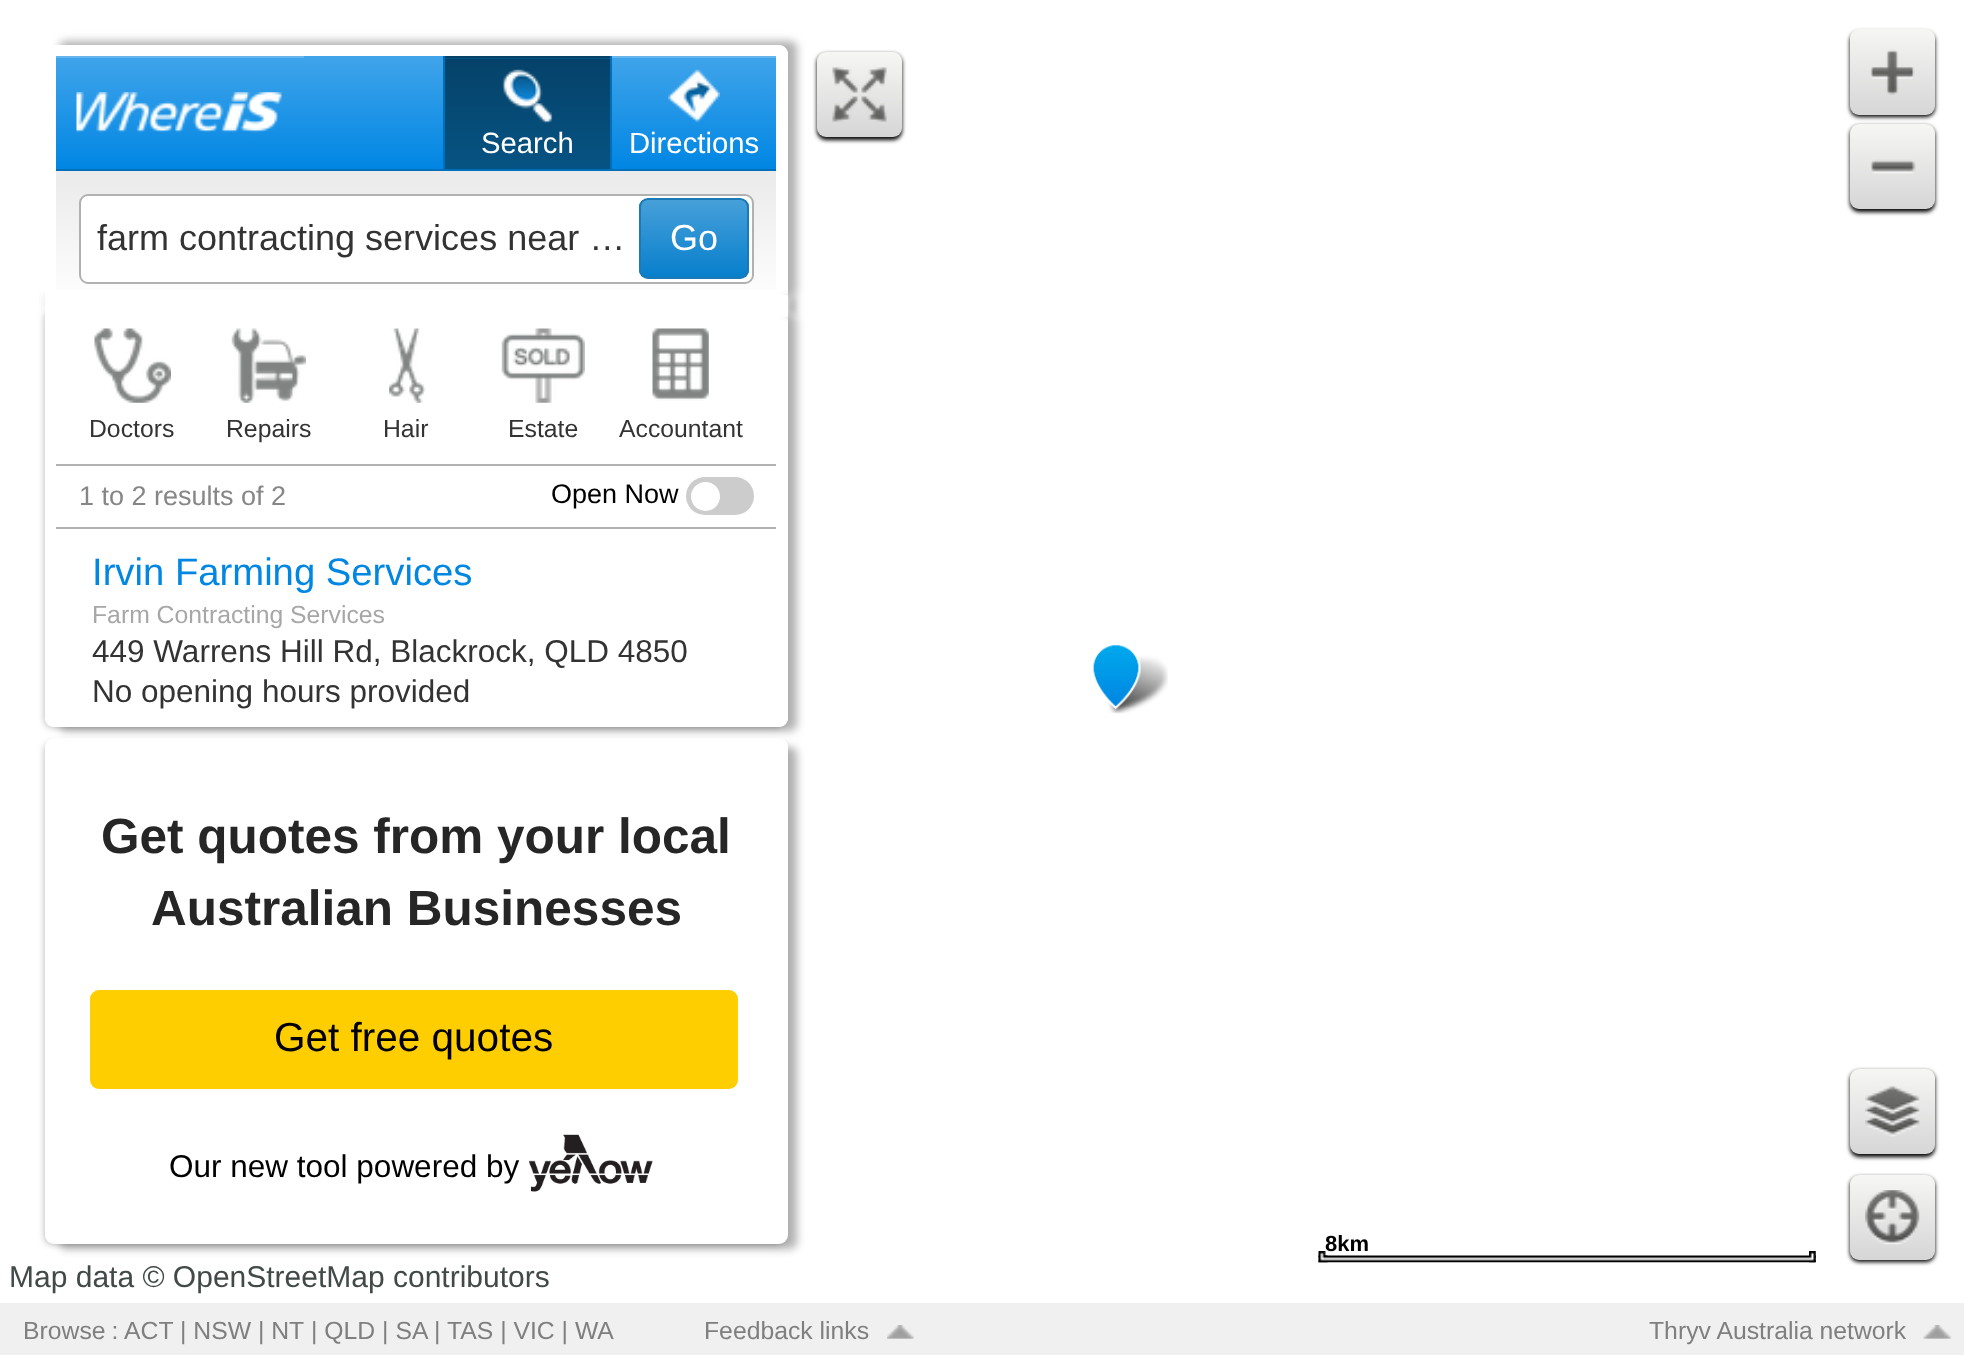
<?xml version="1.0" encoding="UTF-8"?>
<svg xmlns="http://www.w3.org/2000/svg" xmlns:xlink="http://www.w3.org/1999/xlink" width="1964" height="1355">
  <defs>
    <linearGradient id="g1" gradientUnits="userSpaceOnUse" x1="416" y1="169" x2="416" y2="56"><stop offset="0" stop-color="#0086e3" /><stop offset="1" stop-color="#40a4ea" /></linearGradient>
    <linearGradient id="g2" gradientUnits="userSpaceOnUse" x1="528" y1="59" x2="528" y2="-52"><stop offset="0" stop-color="#065383" /><stop offset="1" stop-color="#054269" /></linearGradient>
    <linearGradient id="g3" gradientUnits="userSpaceOnUse" x1="528" y1="169" x2="528" y2="59"><stop offset="0" stop-color="#065383" /><stop offset="1" stop-color="#054269" /></linearGradient>
    <linearGradient id="g4" gradientUnits="userSpaceOnUse" x1="860" y1="137" x2="860" y2="52"><stop offset="0" stop-color="#d6d6d6" /><stop offset="1" stop-color="#f6f6f5" /></linearGradient>
    <linearGradient id="g5" gradientUnits="userSpaceOnUse" x1="416" y1="306" x2="416" y2="171"><stop offset="0" stop-color="#ffffff" /><stop offset="1" stop-color="#eaeaea" /></linearGradient>
    <clipPath id="clip1"><rect x="639" y="198" width="110" height="81" rx="9" /></clipPath>
    <linearGradient id="g6" gradientUnits="userSpaceOnUse" x1="694" y1="277" x2="694" y2="200"><stop offset="0" stop-color="#077fcc" /><stop offset="1" stop-color="#47a0d9" /></linearGradient>
    <clipPath id="clip2"><rect x="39" y="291" width="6" height="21" /></clipPath>
    <clipPath id="clip3"><path d="M 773 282 h 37 v 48 h -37 z m 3 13 h 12 v 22 h -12 z" clip-rule="evenodd" /></clipPath>
    <linearGradient id="g7" gradientUnits="userSpaceOnUse" x1="1892" y1="115" x2="1892" y2="29"><stop offset="0" stop-color="#d6d6d6" /><stop offset="1" stop-color="#f6f6f5" /></linearGradient>
    <linearGradient id="g8" gradientUnits="userSpaceOnUse" x1="1892" y1="209" x2="1892" y2="124"><stop offset="0" stop-color="#d6d6d6" /><stop offset="1" stop-color="#f6f6f5" /></linearGradient>
    <linearGradient id="g9" gradientUnits="userSpaceOnUse" x1="1892" y1="1154" x2="1892" y2="1069"><stop offset="0" stop-color="#d6d6d6" /><stop offset="1" stop-color="#f6f6f5" /></linearGradient>
    <linearGradient id="g10" gradientUnits="userSpaceOnUse" x1="1892" y1="1260" x2="1892" y2="1175"><stop offset="0" stop-color="#d6d6d6" /><stop offset="1" stop-color="#f6f6f5" /></linearGradient>
  </defs>
  <rect width="100%" height="100%" fill="#ffffff" />
  <rect x="59" y="315" width="738" height="416" rx="7" fill="#000000" fill-opacity="0.3" filter="blur(4.5px)" />
  <rect x="45" y="311" width="738" height="416" rx="7" fill="#000000" fill-opacity="0.3" filter="blur(3.5px)" />
  <path d="M 45 306 h 743 v 412 c 0 5 -4 9 -9 9 h -725 c -5 0 -9 -4 -9 -9 z" fill="#ffffff" />
  <path d="M 45 306 h 743 v 412 c 0 5 -5 9 -10 9 h -724 c -5 0 -9 -4 -9 -9 z m 11 0 h 720 v 410 h -720 z" fill="#ffffff" fill-rule="evenodd" />
  <rect x="59" y="41" width="738" height="256" rx="7" fill="#000000" fill-opacity="0.3" filter="blur(4.5px)" />
  <path d="M 54 45 h 725 c 5 0 9 4 9 9 v 252 h -743 v -252 c 0 -5 4 -9 9 -9 z" fill="#ffffff" />
  <path d="M 54 45 h 724 c 5 0 10 4 10 9 v 252 h -743 v -252 c 0 -5 4 -9 9 -9 z m 2 11 h 720 v 250 h -720 z" fill="#ffffff" fill-rule="evenodd" />
  <rect x="56" y="56" width="720" height="113" fill="url(#g1)" />
  <rect x="56" y="169" width="720" height="2" fill="#006fba" />
  <rect x="56" y="56" width="248" height="2" fill="#66b6ee" />
  <image x="76" y="92" width="206" height="41" xlink:href="image1.png" />
  <rect x="443" y="58" width="167" height="1" fill="url(#g2)" />
  <rect x="445" y="59" width="165" height="110" fill="url(#g3)" />
  <rect x="443" y="56" width="167" height="2" fill="#054269" />
  <rect x="443" y="56" width="2" height="113" fill="#006fba" />
  <image x="502" y="69" width="51" height="55" xlink:href="image2.png" />
  <rect x="610" y="56" width="166" height="2" fill="#66b6ee" />
  <rect x="610" y="56" width="2" height="113" fill="#006fba" />
  <image x="668" y="69" width="52" height="54" xlink:href="image3.png" />
  <rect x="817" y="54" width="85" height="86" rx="9" fill="#000000" filter="blur(2px)" />
  <rect x="817" y="52" width="85" height="85" rx="9" fill="url(#g4)" />
  <image x="832" y="67" width="55" height="55" xlink:href="image4.png" />
  <rect x="56" y="171" width="720" height="119" fill="url(#g5)" />
  <rect x="80" y="195" width="673" height="88" rx="8" fill="#ffffff" stroke="#b1b1b1" stroke-width="2" />
  <g clip-path="url(#clip1)">
    <rect x="639" y="200" width="110" height="77" fill="url(#g6)" />
  </g>
  <rect x="640" y="199" width="108" height="79" rx="8" fill="none" stroke="#1b79b6" stroke-width="2" />
  <g clip-path="url(#clip2)">
    <rect x="47" y="295" width="2" height="13" fill="#5a5a5a" fill-opacity="0.7" filter="blur(5.5px)" />
  </g>
  <g clip-path="url(#clip3)">
    <rect x="788" y="297" width="7" height="18" fill="#5a5a5a" fill-opacity="0.7" filter="blur(4.5px)" />
  </g>
  <image x="94" y="328" width="77" height="75" xlink:href="image5.png" />
  <image x="231" y="328" width="75" height="75" xlink:href="image6.png" />
  <image x="389" y="328" width="37" height="75" xlink:href="image7.png" />
  <image x="501" y="328" width="84" height="75" xlink:href="image8.png" />
  <image x="652" y="328" width="57" height="73" xlink:href="image9.png" />
  <rect x="56" y="464" width="720" height="2" fill="#b2b2b2" />
  <rect x="56" y="527" width="720" height="2" fill="#b2b2b2" />
  <rect x="686" y="477" width="68" height="38" rx="19" fill="#cccccc" />
  <circle cx="705.5" cy="496.5" r="14.5" fill="#ffffff" />
  <rect x="59" y="747" width="738" height="502" rx="7" fill="#000000" fill-opacity="0.3" filter="blur(4.5px)" />
  <rect x="45" y="743" width="738" height="501" rx="7" fill="#000000" fill-opacity="0.3" filter="blur(3.5px)" />
  <rect x="45" y="738" width="743" height="506" rx="9" fill="#ffffff" />
  <rect x="90" y="990" width="648" height="99" rx="9" fill="#ffce00" />
  <image x="529" y="1134" width="124" height="58" xlink:href="image10.png" />
  <rect x="1850" y="32" width="85" height="85" rx="9" fill="#000000" filter="blur(2px)" />
  <rect x="1850" y="29" width="85" height="86" rx="9" fill="url(#g7)" />
  <image x="1870" y="49" width="45" height="46" xlink:href="image11.png" />
  <rect x="1850" y="126" width="85" height="86" rx="9" fill="#000000" filter="blur(2px)" />
  <rect x="1850" y="124" width="85" height="85" rx="9" fill="url(#g8)" />
  <image x="1870" y="159" width="46" height="15" xlink:href="image12.png" />
  <image x="1093" y="645" width="75" height="69" xlink:href="image13.png" />
  <image x="1318" y="1255" width="498" height="8" xlink:href="image14.png" />
  <image x="1318" y="1251" width="10" height="12" xlink:href="image15.png" />
  <image x="1809" y="1251" width="7" height="12" xlink:href="image16.png" />
  <rect x="1850" y="1071" width="85" height="86" rx="9" fill="#000000" filter="blur(2px)" />
  <rect x="1850" y="1069" width="85" height="85" rx="9" fill="url(#g9)" />
  <image x="1865" y="1086" width="55" height="51" xlink:href="image17.png" />
  <rect x="1850" y="1177" width="85" height="85" rx="9" fill="#000000" filter="blur(2px)" />
  <rect x="1850" y="1175" width="85" height="85" rx="9" fill="url(#g10)" />
  <image x="1865" y="1190" width="55" height="55" xlink:href="image18.png" />
  <rect y="1303" width="1964" height="52" fill="#f0f0f0" />
  <image x="887" y="1325" width="27" height="14" xlink:href="image19.png" />
  <image x="1923" y="1325" width="29" height="14" xlink:href="image20.png" />
  <text x="481" y="153" style="font-family: Liberation Sans; font-size: 29.25px; fill: #ffffff">Search</text>
  <text x="629" y="153" style="font-family: Liberation Sans; font-size: 29.25px; fill: #ffffff">Directions</text>
  <text x="97" y="250" style="font-family: Liberation Sans; font-size: 36px; fill: #333333">farm contracting services near …</text>
  <text x="670" y="250" style="font-family: Liberation Sans; font-size: 36px; fill: #ffffff">Go</text>
  <text x="89" y="437" style="font-family: Liberation Sans; font-size: 24.75px; fill: #333333">Doctors</text>
  <text x="226" y="437" style="font-family: Liberation Sans; font-size: 24.75px; fill: #333333">Repairs</text>
  <text x="383" y="437" style="font-family: Liberation Sans; font-size: 24.75px; fill: #333333">Hair</text>
  <text x="508" y="437" style="font-family: Liberation Sans; font-size: 24.75px; fill: #333333">Estate</text>
  <text x="619" y="437" style="font-family: Liberation Sans; font-size: 24.75px; fill: #333333">Accountant</text>
  <text x="79" y="505" style="font-family: Liberation Sans; font-size: 27px; fill: #868686">1 to 2 results of 2</text>
  <text x="551" y="503" style="font-family: Liberation Sans; font-size: 27px; fill: #000000">Open Now</text>
  <text x="92" y="585" style="font-family: Liberation Sans; font-size: 38.25px; fill: #0086e3">Irvin Farming Services</text>
  <text x="92" y="623" style="font-family: Liberation Sans; font-size: 24.75px; fill: #a7a7a7">Farm Contracting Services</text>
  <text x="92" y="662" style="font-family: Liberation Sans; font-size: 31.5px; fill: #333333">449 Warrens Hill Rd, Blackrock, QLD 4850</text>
  <text x="92" y="702" style="font-family: Liberation Sans; font-size: 31.5px; fill: #333333">No opening hours provided</text>
  <text x="101" y="853" style="font-family: Liberation Sans; font-size: 49.5px; font-weight: bold; fill: #262626">Get quotes from your local</text>
  <text x="151" y="925" style="font-family: Liberation Sans; font-size: 49.5px; font-weight: bold; fill: #262626">Australian Businesses</text>
  <text x="274" y="1051" style="font-family: Liberation Sans; font-size: 40.5px; fill: #000000">Get free quotes</text>
  <text x="169" y="1177" style="font-family: Liberation Sans; font-size: 31.5px; fill: #000000">Our new tool powered by</text>
  <text x="1325" y="1251" style="font-family: Liberation Sans; font-size: 22px; font-weight: bold; fill: #000000">8km</text>
  <text x="9" y="1287" style="font-family: Liberation Sans; font-size: 30px; fill: #424949">Map data © OpenStreetMap contributors</text>
  <text x="23" y="1339" word-spacing="-1" style="font-family: Liberation Sans; font-size: 24.75px; fill: #7f7f7f">Browse :</text>
  <text x="124" y="1339" style="font-family: Liberation Sans; font-size: 24.75px; fill: #7f7f7f">ACT</text>
  <text x="180" y="1339" style="font-family: Liberation Sans; font-size: 24.75px; fill: #7f7f7f">| NSW | NT</text>
  <text x="311" y="1339" style="font-family: Liberation Sans; font-size: 24.75px; fill: #7f7f7f">| QLD | SA</text>
  <text x="434" y="1339" style="font-family: Liberation Sans; font-size: 24.75px; fill: #7f7f7f">|</text>
  <text x="447" y="1339" style="font-family: Liberation Sans; font-size: 24.75px; fill: #7f7f7f">TAS | VIC | WA</text>
  <text x="704" y="1339" style="font-family: Liberation Sans; font-size: 24.75px; fill: #7f7f7f">Feedback links</text>
  <text x="1649" y="1339" style="font-family: Liberation Sans; font-size: 24.75px; fill: #7f7f7f">Thryv Australia network</text>
</svg>
